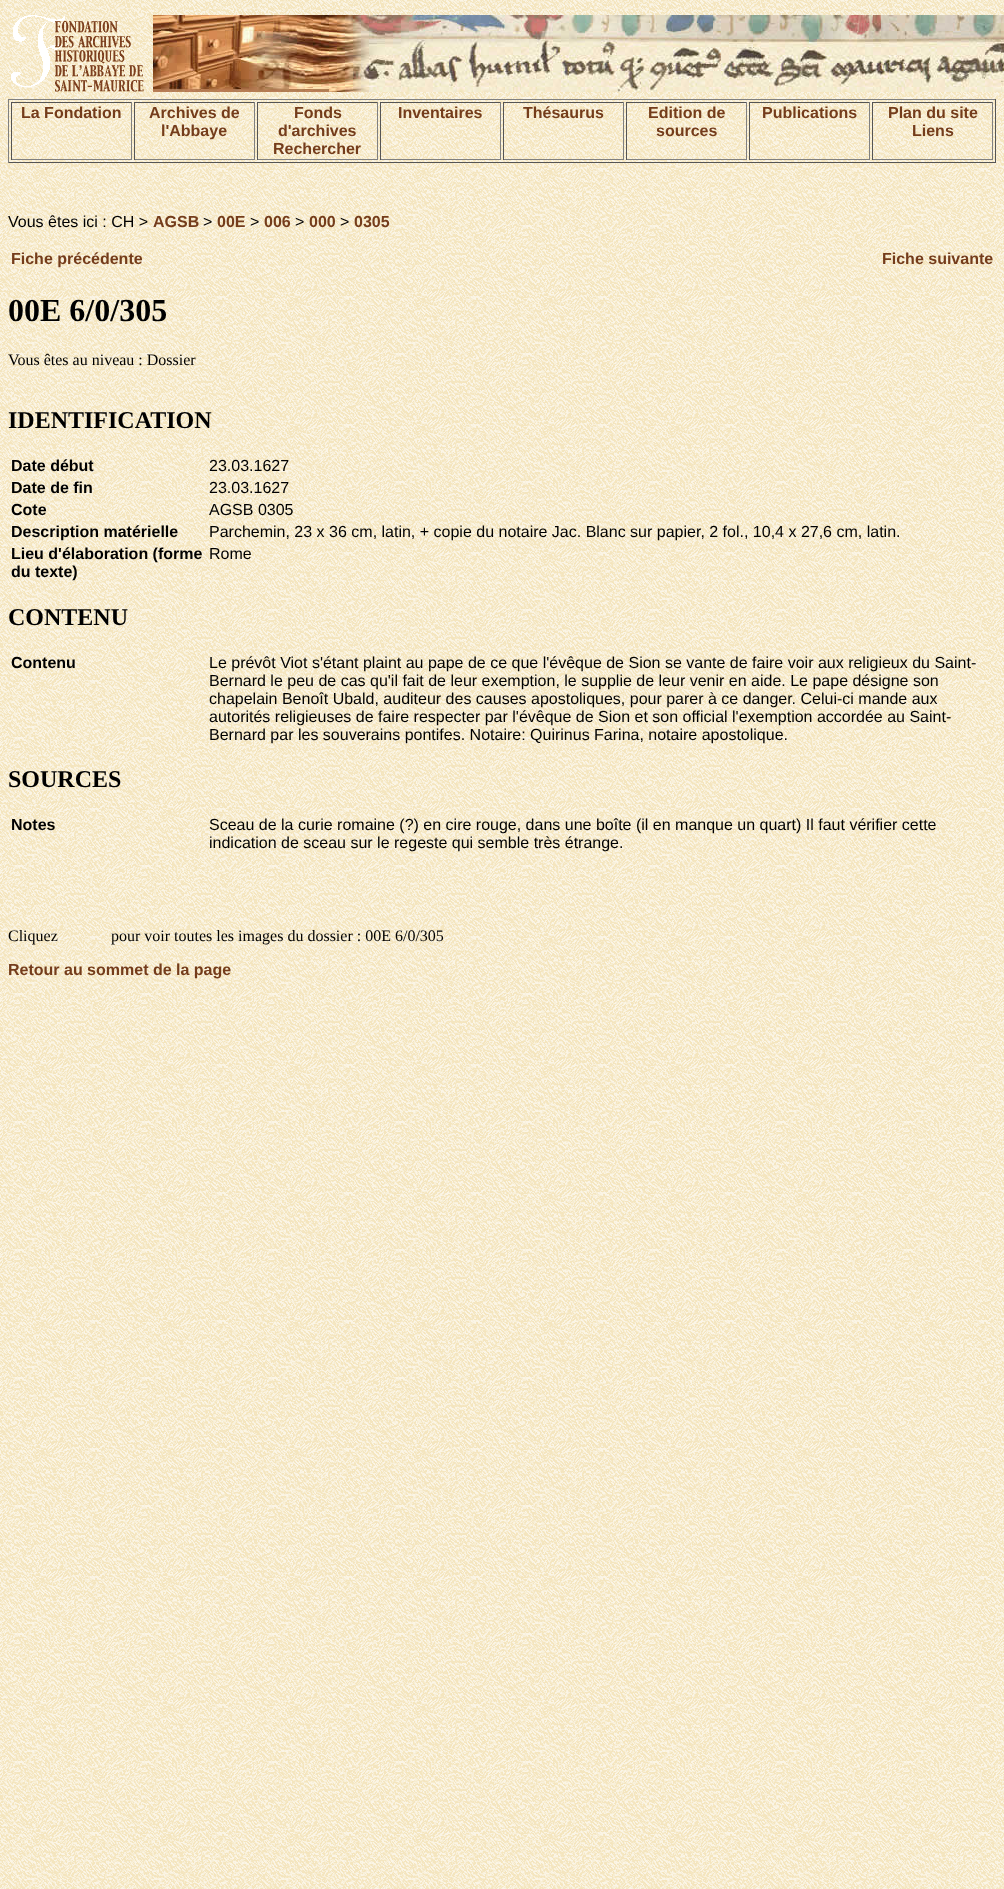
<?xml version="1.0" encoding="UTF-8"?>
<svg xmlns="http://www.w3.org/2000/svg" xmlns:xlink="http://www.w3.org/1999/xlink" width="1004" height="1889">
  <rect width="100%" height="100%" fill="#ffffff" />
  <image x="0" y="0" width="1004" height="1889" xlink:href="image1.png" />
  <image x="11" y="15" width="133" height="77" xlink:href="image2.png" />
  <image x="153" y="15" width="851" height="77" xlink:href="image3.png" />
  <rect x="8" y="99" width="988" height="1" fill="#808080" />
  <rect x="995" y="99" width="1" height="64" fill="#555555" />
  <rect x="8" y="162" width="988" height="1" fill="#555555" />
  <rect x="8" y="99" width="1" height="64" fill="#808080" />
  <rect x="11" y="102" width="121" height="1" fill="#555555" />
  <rect x="131" y="102" width="1" height="58" fill="#808080" />
  <rect x="11" y="159" width="121" height="1" fill="#808080" />
  <rect x="11" y="102" width="1" height="58" fill="#555555" />
  <rect x="134" y="102" width="121" height="1" fill="#555555" />
  <rect x="254" y="102" width="1" height="58" fill="#808080" />
  <rect x="134" y="159" width="121" height="1" fill="#808080" />
  <rect x="134" y="102" width="1" height="58" fill="#555555" />
  <rect x="257" y="102" width="121" height="1" fill="#555555" />
  <rect x="377" y="102" width="1" height="58" fill="#808080" />
  <rect x="257" y="159" width="121" height="1" fill="#808080" />
  <rect x="257" y="102" width="1" height="58" fill="#555555" />
  <rect x="380" y="102" width="121" height="1" fill="#555555" />
  <rect x="500" y="102" width="1" height="58" fill="#808080" />
  <rect x="380" y="159" width="121" height="1" fill="#808080" />
  <rect x="380" y="102" width="1" height="58" fill="#555555" />
  <rect x="503" y="102" width="121" height="1" fill="#555555" />
  <rect x="623" y="102" width="1" height="58" fill="#808080" />
  <rect x="503" y="159" width="121" height="1" fill="#808080" />
  <rect x="503" y="102" width="1" height="58" fill="#555555" />
  <rect x="626" y="102" width="121" height="1" fill="#555555" />
  <rect x="746" y="102" width="1" height="58" fill="#808080" />
  <rect x="626" y="159" width="121" height="1" fill="#808080" />
  <rect x="626" y="102" width="1" height="58" fill="#555555" />
  <rect x="749" y="102" width="121" height="1" fill="#555555" />
  <rect x="869" y="102" width="1" height="58" fill="#808080" />
  <rect x="749" y="159" width="121" height="1" fill="#808080" />
  <rect x="749" y="102" width="1" height="58" fill="#555555" />
  <rect x="872" y="102" width="121" height="1" fill="#555555" />
  <rect x="992" y="102" width="1" height="58" fill="#808080" />
  <rect x="872" y="159" width="121" height="1" fill="#808080" />
  <rect x="872" y="102" width="1" height="58" fill="#555555" />
  <text x="21" y="118" style="font-family: Liberation Sans; font-size: 16px; font-weight: bold; fill: #743c1b">La Fondation</text>
  <text x="149" y="118" style="font-family: Liberation Sans; font-size: 16px; font-weight: bold; fill: #743c1b">Archives de</text>
  <text x="161" y="136" style="font-family: Liberation Sans; font-size: 16px; font-weight: bold; fill: #743c1b">l'Abbaye</text>
  <text x="294" y="118" style="font-family: Liberation Sans; font-size: 16px; font-weight: bold; fill: #743c1b">Fonds</text>
  <text x="278" y="136" style="font-family: Liberation Sans; font-size: 16px; font-weight: bold; fill: #743c1b">d'archives</text>
  <text x="273" y="154" style="font-family: Liberation Sans; font-size: 16px; font-weight: bold; fill: #743c1b">Rechercher</text>
  <text x="398" y="118" style="font-family: Liberation Sans; font-size: 16px; font-weight: bold; fill: #743c1b">Inventaires</text>
  <text x="523" y="118" style="font-family: Liberation Sans; font-size: 16px; font-weight: bold; fill: #743c1b">Thésaurus</text>
  <text x="648" y="118" style="font-family: Liberation Sans; font-size: 16px; font-weight: bold; fill: #743c1b">Edition de</text>
  <text x="656" y="136" style="font-family: Liberation Sans; font-size: 16px; font-weight: bold; fill: #743c1b">sources</text>
  <text x="762" y="118" style="font-family: Liberation Sans; font-size: 16px; font-weight: bold; fill: #743c1b">Publications</text>
  <text x="888" y="118" style="font-family: Liberation Sans; font-size: 16px; font-weight: bold; fill: #743c1b">Plan du site</text>
  <text x="912" y="136" style="font-family: Liberation Sans; font-size: 16px; font-weight: bold; fill: #743c1b">Liens</text>
  <text x="8" y="227" style="font-family: Liberation Sans; font-size: 16px; fill: #000000">Vous êtes ici : CH &gt;</text>
  <text x="153" y="227" style="font-family: Liberation Sans; font-size: 16px; font-weight: bold; fill: #743c1b">AGSB</text>
  <text x="203" y="227" style="font-family: Liberation Sans; font-size: 16px; fill: #000000">&gt;</text>
  <text x="217" y="227" style="font-family: Liberation Sans; font-size: 16px; font-weight: bold; fill: #743c1b">00E</text>
  <text x="250" y="227" style="font-family: Liberation Sans; font-size: 16px; fill: #000000">&gt;</text>
  <text x="264" y="227" style="font-family: Liberation Sans; font-size: 16px; font-weight: bold; fill: #743c1b">006</text>
  <text x="295" y="227" style="font-family: Liberation Sans; font-size: 16px; fill: #000000">&gt;</text>
  <text x="309" y="227" style="font-family: Liberation Sans; font-size: 16px; font-weight: bold; fill: #743c1b">000</text>
  <text x="340" y="227" style="font-family: Liberation Sans; font-size: 16px; fill: #000000">&gt;</text>
  <text x="354" y="227" style="font-family: Liberation Sans; font-size: 16px; font-weight: bold; fill: #743c1b">0305</text>
  <text x="11" y="264" style="font-family: Liberation Sans; font-size: 16px; font-weight: bold; fill: #743c1b">Fiche précédente</text>
  <text x="882" y="264" style="font-family: Liberation Sans; font-size: 16px; font-weight: bold; fill: #743c1b">Fiche suivante</text>
  <text x="8" y="321" style="font-family: Liberation Serif; font-size: 32px; font-weight: bold; fill: #000000">00E 6/0/305</text>
  <text x="8" y="365" style="font-family: Liberation Serif; font-size: 16px; fill: #000000">Vous êtes au niveau : Dossier</text>
  <text x="8" y="428" style="font-family: Liberation Serif; font-size: 24px; font-weight: bold; fill: #000000">IDENTIFICATION</text>
  <text x="11" y="471" style="font-family: Liberation Sans; font-size: 16px; font-weight: bold; fill: #000000">Date début</text>
  <text x="209" y="471" style="font-family: Liberation Sans; font-size: 16px; fill: #000000">23.03.1627</text>
  <text x="11" y="493" style="font-family: Liberation Sans; font-size: 16px; font-weight: bold; fill: #000000">Date de fin</text>
  <text x="209" y="493" style="font-family: Liberation Sans; font-size: 16px; fill: #000000">23.03.1627</text>
  <text x="11" y="515" style="font-family: Liberation Sans; font-size: 16px; font-weight: bold; fill: #000000">Cote</text>
  <text x="209" y="515" style="font-family: Liberation Sans; font-size: 16px; fill: #000000">AGSB 0305</text>
  <text x="11" y="537" style="font-family: Liberation Sans; font-size: 16px; font-weight: bold; fill: #000000">Description matérielle</text>
  <text x="209" y="537" style="font-family: Liberation Sans; font-size: 16px; fill: #000000">Parchemin, 23 x 36 cm, latin, + copie du notaire Jac. Blanc sur papier, 2 fol., 10,4 x 27,6 cm, latin.</text>
  <text x="11" y="559" style="font-family: Liberation Sans; font-size: 16px; font-weight: bold; fill: #000000">Lieu d'élaboration (forme</text>
  <text x="11" y="577" style="font-family: Liberation Sans; font-size: 16px; font-weight: bold; fill: #000000">du texte)</text>
  <text x="209" y="559" style="font-family: Liberation Sans; font-size: 16px; fill: #000000">Rome</text>
  <text x="8" y="625" style="font-family: Liberation Serif; font-size: 24px; font-weight: bold; fill: #000000">CONTENU</text>
  <text x="11" y="668" style="font-family: Liberation Sans; font-size: 16px; font-weight: bold; fill: #000000">Contenu</text>
  <text x="209" y="668" style="font-family: Liberation Sans; font-size: 16px; fill: #000000">Le prévôt Viot s'étant plaint au pape de ce que l'évêque de Sion se vante de faire voir aux religieux du Saint-</text>
  <text x="209" y="686" style="font-family: Liberation Sans; font-size: 16px; fill: #000000">Bernard le peu de cas qu'il fait de leur exemption, le supplie de leur venir en aide. Le pape désigne son</text>
  <text x="209" y="704" style="font-family: Liberation Sans; font-size: 16px; fill: #000000">chapelain Benoît Ubald, auditeur des causes apostoliques, pour parer à ce danger. Celui-ci mande aux</text>
  <text x="209" y="722" style="font-family: Liberation Sans; font-size: 16px; fill: #000000">autorités religieuses de faire respecter par l'évêque de Sion et son official l'exemption accordée au Saint-</text>
  <text x="209" y="740" style="font-family: Liberation Sans; font-size: 16px; fill: #000000">Bernard par les souverains pontifes. Notaire: Quirinus Farina, notaire apostolique.</text>
  <text x="8" y="787" style="font-family: Liberation Serif; font-size: 24px; font-weight: bold; fill: #000000">SOURCES</text>
  <text x="11" y="830" style="font-family: Liberation Sans; font-size: 16px; font-weight: bold; fill: #000000">Notes</text>
  <text x="209" y="830" style="font-family: Liberation Sans; font-size: 16px; fill: #000000">Sceau de la curie romaine (?) en cire rouge, dans une boîte (il en manque un quart) Il faut vérifier cette</text>
  <text x="209" y="848" style="font-family: Liberation Sans; font-size: 16px; fill: #000000">indication de sceau sur le regeste qui semble très étrange.</text>
  <text x="8" y="941" style="font-family: Liberation Serif; font-size: 16px; fill: #000000">Cliquez</text>
  <text x="111" y="941" style="font-family: Liberation Serif; font-size: 16px; fill: #000000">pour voir toutes les images du dossier : 00E 6/0/305</text>
  <text x="8" y="975" style="font-family: Liberation Sans; font-size: 16px; font-weight: bold; fill: #743c1b">Retour au sommet de la page</text>
</svg>
